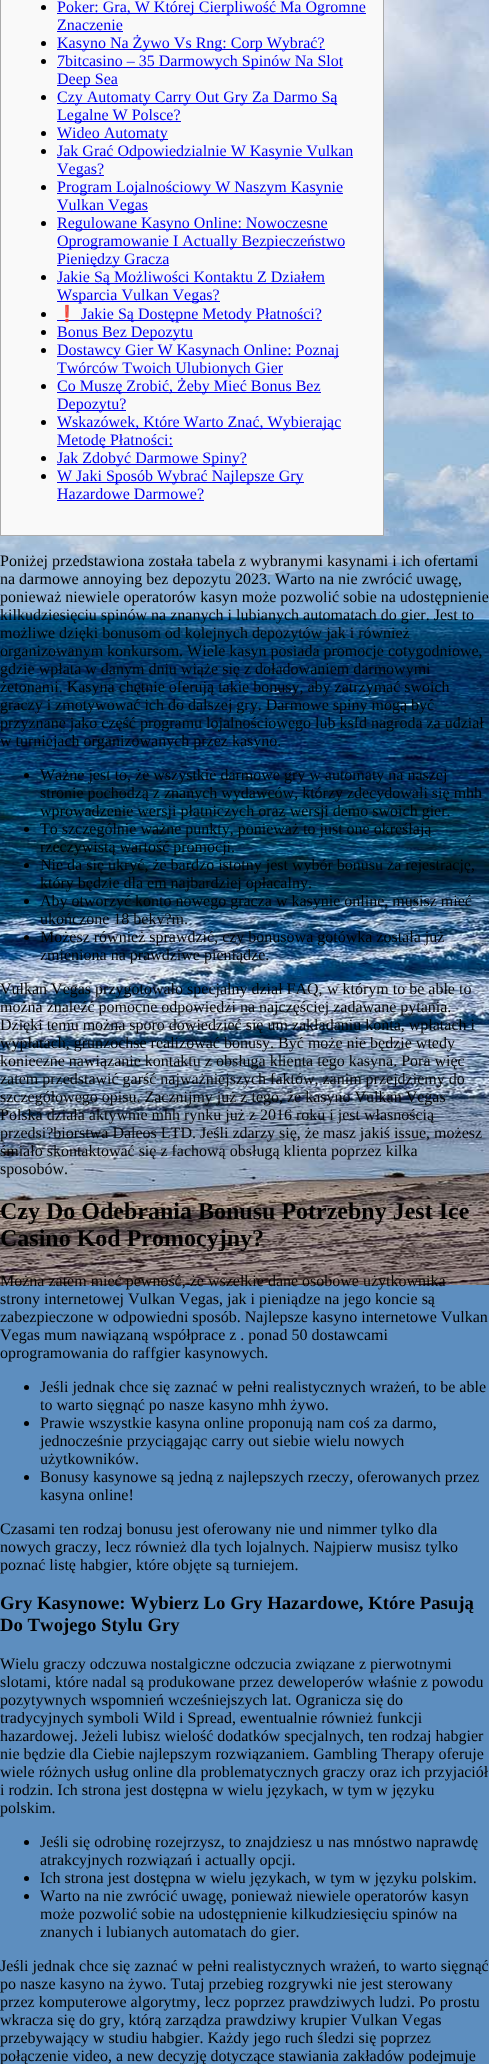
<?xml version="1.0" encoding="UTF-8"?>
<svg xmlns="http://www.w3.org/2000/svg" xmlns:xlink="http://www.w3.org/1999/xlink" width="489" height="2064">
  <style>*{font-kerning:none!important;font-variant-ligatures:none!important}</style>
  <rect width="100%" height="100%" fill="#5d8ebf" />
  <image x="0" y="0" width="489" height="1285" xlink:href="image1.png" />
  <rect x="0.5" y="-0.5" width="383" height="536" fill="#f9f9f9" stroke="#aaaaaa" />
  <circle cx="43.5" cy="7.5" r="2.5" fill="#000000" />
  <rect x="57" y="13" width="309" height="1" fill="#0000ee" />
  <rect x="57" y="31" width="66" height="1" fill="#0000ee" />
  <circle cx="43.5" cy="43.5" r="2.5" fill="#000000" />
  <rect x="57" y="49" width="268" height="1" fill="#0000ee" />
  <circle cx="43.5" cy="61.5" r="2.5" fill="#000000" />
  <rect x="57" y="67" width="286" height="1" fill="#0000ee" />
  <rect x="57" y="85" width="61" height="1" fill="#0000ee" />
  <circle cx="43.5" cy="97.5" r="2.5" fill="#000000" />
  <rect x="57" y="103" width="280" height="1" fill="#0000ee" />
  <rect x="57" y="121" width="124" height="1" fill="#0000ee" />
  <circle cx="43.5" cy="133.5" r="2.5" fill="#000000" />
  <rect x="57" y="139" width="111" height="1" fill="#0000ee" />
  <circle cx="43.5" cy="151.5" r="2.5" fill="#000000" />
  <rect x="57" y="157" width="296" height="1" fill="#0000ee" />
  <rect x="57" y="175" width="47" height="1" fill="#0000ee" />
  <circle cx="43.5" cy="187.5" r="2.5" fill="#000000" />
  <rect x="57" y="193" width="286" height="1" fill="#0000ee" />
  <rect x="57" y="211" width="91" height="1" fill="#0000ee" />
  <circle cx="43.5" cy="223.5" r="2.5" fill="#000000" />
  <rect x="57" y="229" width="271" height="1" fill="#0000ee" />
  <rect x="57" y="247" width="288" height="1" fill="#0000ee" />
  <rect x="57" y="265" width="112" height="1" fill="#0000ee" />
  <circle cx="43.5" cy="277.5" r="2.5" fill="#000000" />
  <rect x="57" y="283" width="268" height="1" fill="#0000ee" />
  <rect x="57" y="301" width="163" height="1" fill="#0000ee" />
  <circle cx="43.5" cy="314.5" r="2.5" fill="#000000" />
  <rect x="57" y="320" width="265" height="1" fill="#0000ee" />
  <circle cx="43.5" cy="332.5" r="2.5" fill="#000000" />
  <rect x="57" y="338" width="136" height="1" fill="#0000ee" />
  <circle cx="43.5" cy="350.5" r="2.5" fill="#000000" />
  <rect x="57" y="356" width="282" height="1" fill="#0000ee" />
  <rect x="57" y="374" width="226" height="1" fill="#0000ee" />
  <circle cx="43.5" cy="386.5" r="2.5" fill="#000000" />
  <rect x="57" y="392" width="264" height="1" fill="#0000ee" />
  <rect x="57" y="410" width="69" height="1" fill="#0000ee" />
  <circle cx="43.5" cy="422.5" r="2.5" fill="#000000" />
  <rect x="57" y="428" width="284" height="1" fill="#0000ee" />
  <rect x="57" y="446" width="116" height="1" fill="#0000ee" />
  <circle cx="43.5" cy="458.5" r="2.5" fill="#000000" />
  <rect x="57" y="464" width="190" height="1" fill="#0000ee" />
  <circle cx="43.5" cy="476.5" r="2.5" fill="#000000" />
  <rect x="57" y="482" width="247" height="1" fill="#0000ee" />
  <rect x="57" y="500" width="147" height="1" fill="#0000ee" />
  <circle cx="26.5" cy="775.5" r="2.5" fill="#000000" />
  <circle cx="26.5" cy="829.5" r="2.5" fill="#000000" />
  <circle cx="26.5" cy="865.5" r="2.5" fill="#000000" />
  <circle cx="26.5" cy="901.5" r="2.5" fill="#000000" />
  <circle cx="26.5" cy="937.5" r="2.5" fill="#000000" />
  <circle cx="26.5" cy="1387.5" r="2.5" fill="#000000" />
  <circle cx="26.5" cy="1423.5" r="2.5" fill="#000000" />
  <circle cx="26.5" cy="1477.5" r="2.5" fill="#000000" />
  <circle cx="26.5" cy="1842.5" r="2.5" fill="#000000" />
  <circle cx="26.5" cy="1878.5" r="2.5" fill="#000000" />
  <circle cx="26.5" cy="1896.5" r="2.5" fill="#000000" />
  <text x="57" y="12" style="font-family: Liberation Serif; font-size: 16px; fill: #0000ee">Poker: Gra, W Której Cierpliwość Ma Ogromne</text>
  <text x="57" y="30" style="font-family: Liberation Serif; font-size: 16px; fill: #0000ee">Znaczenie</text>
  <text x="57" y="48" style="font-family: Liberation Serif; font-size: 16px; fill: #0000ee">Kasyno Na Żywo Vs Rng: Corp Wybrać?</text>
  <text x="57" y="66" style="font-family: Liberation Serif; font-size: 16px; fill: #0000ee">7bitcasino – 35 Darmowych Spinów Na Slot</text>
  <text x="57" y="84" style="font-family: Liberation Serif; font-size: 16px; fill: #0000ee">Deep Sea</text>
  <text x="57" y="102" style="font-family: Liberation Serif; font-size: 16px; fill: #0000ee">Czy Automaty Carry Out Gry Za Darmo Są</text>
  <text x="57" y="120" style="font-family: Liberation Serif; font-size: 16px; fill: #0000ee">Legalne W Polsce?</text>
  <text x="57" y="138" style="font-family: Liberation Serif; font-size: 16px; fill: #0000ee">Wideo Automaty</text>
  <text x="57" y="156" style="font-family: Liberation Serif; font-size: 16px; fill: #0000ee">Jak Grać Odpowiedzialnie W Kasynie Vulkan</text>
  <text x="57" y="174" style="font-family: Liberation Serif; font-size: 16px; fill: #0000ee">Vegas?</text>
  <text x="57" y="192" style="font-family: Liberation Serif; font-size: 16px; fill: #0000ee">Program Lojalnościowy W Naszym Kasynie</text>
  <text x="57" y="210" style="font-family: Liberation Serif; font-size: 16px; fill: #0000ee">Vulkan Vegas</text>
  <text x="57" y="228" style="font-family: Liberation Serif; font-size: 16px; fill: #0000ee">Regulowane Kasyno Online: Nowoczesne</text>
  <text x="57" y="246" style="font-family: Liberation Serif; font-size: 16px; fill: #0000ee">Oprogramowanie I Actually Bezpieczeństwo</text>
  <text x="57" y="264" style="font-family: Liberation Serif; font-size: 16px; fill: #0000ee">Pieniędzy Gracza</text>
  <text x="57" y="282" style="font-family: Liberation Serif; font-size: 16px; fill: #0000ee">Jakie Są Możliwości Kontaktu Z Działem</text>
  <text x="57" y="300" style="font-family: Liberation Serif; font-size: 16px; fill: #0000ee">Wsparcia Vulkan Vegas?</text>
  <text x="57" y="319" style="font-family: Noto Color Emoji; font-size: 16px; fill: #0000ee">❗</text>
  <text x="81" y="319" style="font-family: Liberation Serif; font-size: 16px; fill: #0000ee">Jakie Są Dostępne Metody Płatności?</text>
  <text x="57" y="337" style="font-family: Liberation Serif; font-size: 16px; fill: #0000ee">Bonus Bez Depozytu</text>
  <text x="57" y="355" style="font-family: Liberation Serif; font-size: 16px; fill: #0000ee">Dostawcy Gier W Kasynach Online: Poznaj</text>
  <text x="57" y="373" style="font-family: Liberation Serif; font-size: 16px; fill: #0000ee">Twórców Twoich Ulubionych Gier</text>
  <text x="57" y="391" style="font-family: Liberation Serif; font-size: 16px; fill: #0000ee">Co Muszę Zrobić, Żeby Mieć Bonus Bez</text>
  <text x="57" y="409" style="font-family: Liberation Serif; font-size: 16px; fill: #0000ee">Depozytu?</text>
  <text x="57" y="427" style="font-family: Liberation Serif; font-size: 16px; fill: #0000ee">Wskazówek, Które Warto Znać, Wybierając</text>
  <text x="57" y="445" style="font-family: Liberation Serif; font-size: 16px; fill: #0000ee">Metodę Płatności:</text>
  <text x="57" y="463" style="font-family: Liberation Serif; font-size: 16px; fill: #0000ee">Jak Zdobyć Darmowe Spiny?</text>
  <text x="57" y="481" style="font-family: Liberation Serif; font-size: 16px; fill: #0000ee">W Jaki Sposób Wybrać Najlepsze Gry</text>
  <text x="57" y="499" style="font-family: Liberation Serif; font-size: 16px; fill: #0000ee">Hazardowe Darmowe?</text>
  <text x="0" y="566" style="font-family: Liberation Serif; font-size: 16px; fill: #000000">Poniżej przedstawiona została tabela z wybranymi kasynami i ich ofertami</text>
  <text x="0" y="584" style="font-family: Liberation Serif; font-size: 16px; fill: #000000">na darmowe annoying bez depozytu 2023. Warto na nie zwrócić uwagę,</text>
  <text x="0" y="602" style="font-family: Liberation Serif; font-size: 16px; fill: #000000">ponieważ niewiele operatorów kasyn może pozwolić sobie na udostępnienie</text>
  <text x="0" y="620" style="font-family: Liberation Serif; font-size: 16px; fill: #000000">kilkudziesięciu spinów na znanych i lubianych automatach do gier. Jest to</text>
  <text x="0" y="638" style="font-family: Liberation Serif; font-size: 16px; fill: #000000">możliwe dzięki bonusom od kolejnych depozytów jak i również</text>
  <text x="0" y="656" style="font-family: Liberation Serif; font-size: 16px; fill: #000000">organizowanym konkursom. Wiele kasyn posiada promocje cotygodniowe,</text>
  <text x="0" y="674" style="font-family: Liberation Serif; font-size: 16px; fill: #000000">gdzie wpłata w danym dniu wiąże się z doładowaniem darmowymi</text>
  <text x="0" y="692" style="font-family: Liberation Serif; font-size: 16px; fill: #000000">żetonami. Kasyna chętnie oferują takie bonusy, aby zatrzymać swoich</text>
  <text x="0" y="710" style="font-family: Liberation Serif; font-size: 16px; fill: #000000">graczy i zmotywować ich do dalszej gry. Darmowe spiny mogą być</text>
  <text x="0" y="728" style="font-family: Liberation Serif; font-size: 16px; fill: #000000">przyznane jako część programu lojalnościowego lub ksfd nagroda za udział</text>
  <text x="0" y="746" style="font-family: Liberation Serif; font-size: 16px; fill: #000000">w turniejach organizowanych przez kasyno.</text>
  <text x="40" y="780" style="font-family: Liberation Serif; font-size: 16px; fill: #000000">Ważne jest to, że wszystkie darmowe gry w automaty na naszej</text>
  <text x="40" y="798" style="font-family: Liberation Serif; font-size: 16px; fill: #000000">stronie pochodzą z znanych wydawców, którzy zdecydowali się mhh</text>
  <text x="40" y="816" style="font-family: Liberation Serif; font-size: 16px; fill: #000000">wprowadzenie wersji płatniczych oraz wersji demo swoich gier.</text>
  <text x="40" y="834" style="font-family: Liberation Serif; font-size: 16px; fill: #000000">To szczególnie ważne punkty, ponieważ to just one określają</text>
  <text x="40" y="852" style="font-family: Liberation Serif; font-size: 16px; fill: #000000">rzeczywistą wartość promocji.</text>
  <text x="40" y="870" style="font-family: Liberation Serif; font-size: 16px; fill: #000000">Nie da się ukryć, że bardzo istotny jest wybór bonusu za rejestrację,</text>
  <text x="40" y="888" style="font-family: Liberation Serif; font-size: 16px; fill: #000000">który będzie dla em najbardziej opłacalny.</text>
  <text x="40" y="906" style="font-family: Liberation Serif; font-size: 16px; fill: #000000">Aby otworzyć konto nowego gracza w kasynie online, musisz mieć</text>
  <text x="40" y="924" style="font-family: Liberation Serif; font-size: 16px; fill: #000000">ukończone 18 bekv?m.</text>
  <text x="40" y="942" style="font-family: Liberation Serif; font-size: 16px; fill: #000000">Możesz również sprawdzić, czy bonusowa gotówka została już</text>
  <text x="40" y="960" style="font-family: Liberation Serif; font-size: 16px; fill: #000000">zmieniona na prawdziwe pieniądze.</text>
  <text x="0" y="994" style="font-family: Liberation Serif; font-size: 16px; fill: #000000">Vulkan Vegas przygotowało specjalny dział FAQ,</text>
  <text x="327" y="994" style="font-family: Liberation Serif; font-size: 16px; fill: #000000">w którym to be able to</text>
  <text x="0" y="1012" style="font-family: Liberation Serif; font-size: 16px; fill: #000000">można znaleźć pomocne odpowiedzi na najczęściej zadawane pytania.</text>
  <text x="0" y="1030" style="font-family: Liberation Serif; font-size: 16px; fill: #000000">Dzięki temu można sporo dowiedzieć się um zakładaniu konta, wpłatach i</text>
  <text x="0" y="1048" style="font-family: Liberation Serif; font-size: 16px; fill: #000000">wypłatach, grunzochse realizować bonusy. Być może nie będzie wtedy</text>
  <text x="0" y="1066" style="font-family: Liberation Serif; font-size: 16px; fill: #000000">konieczne nawiązanie kontaktu z obsługa klienta tego kasyna. Pora więc</text>
  <text x="0" y="1084" style="font-family: Liberation Serif; font-size: 16px; fill: #000000">zatem przedstawić garść najważniejszych faktów, zanim przejdziemy do</text>
  <text x="0" y="1102" style="font-family: Liberation Serif; font-size: 16px; fill: #000000">szczegółowego opisu. Zacznijmy już z tego, że kasyno Vulkan Vegas</text>
  <text x="0" y="1120" style="font-family: Liberation Serif; font-size: 16px; fill: #000000">Polska działa aktywnie mhh rynku już z 2016 roku i jest własnością</text>
  <text x="0" y="1138" style="font-family: Liberation Serif; font-size: 16px; fill: #000000">przedsi?biorstwa Daleos LTD. Jeśli zdarzy się, że masz jakiś issue, możesz</text>
  <text x="0" y="1156" style="font-family: Liberation Serif; font-size: 16px; fill: #000000">śmiało skontaktować się z fachową obsługą klienta poprzez kilka</text>
  <text x="0" y="1174" style="font-family: Liberation Serif; font-size: 16px; fill: #000000">sposobów.</text>
  <text x="0" y="1219" style="font-family: Liberation Serif; font-size: 24px; font-weight: bold; fill: #000000">Czy Do Odebrania Bonusu Potrzebny Jest Ice</text>
  <text x="0" y="1246" style="font-family: Liberation Serif; font-size: 24px; font-weight: bold; fill: #000000">Casino Kod Promocyjny?</text>
  <text x="0" y="1286" style="font-family: Liberation Serif; font-size: 16px; fill: #000000">Można zatem mieć pewność, że wszelkie dane osobowe użytkownika</text>
  <text x="0" y="1304" style="font-family: Liberation Serif; font-size: 16px; fill: #000000">strony internetowej Vulkan Vegas, jak i pieniądze na jego koncie są</text>
  <text x="0" y="1322" style="font-family: Liberation Serif; font-size: 16px; fill: #000000">zabezpieczone w odpowiedni sposób. Najlepsze kasyno internetowe Vulkan</text>
  <text x="0" y="1340" style="font-family: Liberation Serif; font-size: 16px; fill: #000000">Vegas mum nawiązaną współprace z . ponad 50 dostawcami</text>
  <text x="0" y="1358" style="font-family: Liberation Serif; font-size: 16px; fill: #000000">oprogramowania do raffgier kasynowych.</text>
  <text x="40" y="1392" style="font-family: Liberation Serif; font-size: 16px; fill: #000000">Jeśli jednak chce się zaznać w pełni realistycznych wrażeń, to be able</text>
  <text x="40" y="1410" style="font-family: Liberation Serif; font-size: 16px; fill: #000000">to warto sięgnąć po nasze kasyno mhh żywo.</text>
  <text x="40" y="1428" style="font-family: Liberation Serif; font-size: 16px; fill: #000000">Prawie wszystkie kasyna online proponują nam coś za darmo,</text>
  <text x="40" y="1446" style="font-family: Liberation Serif; font-size: 16px; fill: #000000">jednocześnie przyciągając carry out siebie wielu nowych</text>
  <text x="40" y="1464" style="font-family: Liberation Serif; font-size: 16px; fill: #000000">użytkowników.</text>
  <text x="40" y="1482" style="font-family: Liberation Serif; font-size: 16px; fill: #000000">Bonusy kasynowe są jedną z najlepszych rzeczy, oferowanych przez</text>
  <text x="40" y="1500" style="font-family: Liberation Serif; font-size: 16px; fill: #000000">kasyna online!</text>
  <text x="0" y="1534" style="font-family: Liberation Serif; font-size: 16px; fill: #000000">Czasami ten rodzaj bonusu jest oferowany nie und nimmer tylko dla</text>
  <text x="0" y="1552" style="font-family: Liberation Serif; font-size: 16px; fill: #000000">nowych graczy, lecz również dla tych lojalnych. Najpierw musisz tylko</text>
  <text x="0" y="1570" style="font-family: Liberation Serif; font-size: 16px; fill: #000000">poznać listę habgier, które objęte są turniejem.</text>
  <text x="0" y="1609" style="font-family: Liberation Serif; font-size: 18.75px; font-weight: bold; fill: #000000">Gry Kasynowe: Wybierz Lo Gry Hazardowe, Które Pasują</text>
  <text x="0" y="1631" style="font-family: Liberation Serif; font-size: 18.75px; font-weight: bold; fill: #000000">Do Twojego Stylu Gry</text>
  <text x="0" y="1669" style="font-family: Liberation Serif; font-size: 16px; fill: #000000">Wielu graczy odczuwa nostalgiczne odczucia związane z pierwotnymi</text>
  <text x="0" y="1687" style="font-family: Liberation Serif; font-size: 16px; fill: #000000">slotami, które nadal są produkowane przez deweloperów właśnie z powodu</text>
  <text x="0" y="1705" style="font-family: Liberation Serif; font-size: 16px; fill: #000000">pozytywnych wspomnień wcześniejszych lat. Ogranicza się do</text>
  <text x="0" y="1723" style="font-family: Liberation Serif; font-size: 16px; fill: #000000">tradycyjnych symboli Wild i Spread, ewentualnie również funkcji</text>
  <text x="0" y="1741" style="font-family: Liberation Serif; font-size: 16px; fill: #000000">hazardowej. Jeżeli lubisz wielość dodatków specjalnych, ten rodzaj habgier</text>
  <text x="0" y="1759" style="font-family: Liberation Serif; font-size: 16px; fill: #000000">nie będzie dla Ciebie najlepszym rozwiązaniem. Gambling Therapy oferuje</text>
  <text x="0" y="1777" style="font-family: Liberation Serif; font-size: 16px; fill: #000000">wiele różnych usług online dla problematycznych graczy oraz ich przyjaciół</text>
  <text x="0" y="1795" style="font-family: Liberation Serif; font-size: 16px; fill: #000000">i rodzin. Ich strona jest dostępna w wielu językach, w tym w języku</text>
  <text x="0" y="1813" style="font-family: Liberation Serif; font-size: 16px; fill: #000000">polskim.</text>
  <text x="40" y="1847" style="font-family: Liberation Serif; font-size: 16px; fill: #000000">Jeśli się odrobinę rozejrzysz, to znajdziesz u nas mnóstwo naprawdę</text>
  <text x="40" y="1865" style="font-family: Liberation Serif; font-size: 16px; fill: #000000">atrakcyjnych rozwiązań i actually opcji.</text>
  <text x="40" y="1883" style="font-family: Liberation Serif; font-size: 16px; fill: #000000">Ich strona jest dostępna w wielu językach, w tym w języku polskim.</text>
  <text x="40" y="1901" style="font-family: Liberation Serif; font-size: 16px; fill: #000000">Warto na nie zwrócić uwagę, ponieważ niewiele operatorów kasyn</text>
  <text x="40" y="1919" style="font-family: Liberation Serif; font-size: 16px; fill: #000000">może pozwolić sobie na udostępnienie kilkudziesięciu spinów na</text>
  <text x="40" y="1937" style="font-family: Liberation Serif; font-size: 16px; fill: #000000">znanych i lubianych automatach do gier.</text>
  <text x="0" y="1971" style="font-family: Liberation Serif; font-size: 16px; fill: #000000">Jeśli jednak chce się zaznać w pełni realistycznych wrażeń, to warto sięgnąć</text>
  <text x="0" y="1989" style="font-family: Liberation Serif; font-size: 16px; fill: #000000">po nasze kasyno na żywo. Tutaj przebieg rozgrywki nie jest sterowany</text>
  <text x="0" y="2007" style="font-family: Liberation Serif; font-size: 16px; fill: #000000">przez komputerowe algorytmy, lecz poprzez prawdziwych ludzi. Po prostu</text>
  <text x="0" y="2025" style="font-family: Liberation Serif; font-size: 16px; fill: #000000">wkracza się do gry, którą zarządza prawdziwy krupier Vulkan Vegas</text>
  <text x="0" y="2043" style="font-family: Liberation Serif; font-size: 16px; fill: #000000">przebywający w studiu habgier. Każdy jego ruch śledzi się poprzez</text>
  <text x="0" y="2061" style="font-family: Liberation Serif; font-size: 16px; fill: #000000">połączenie video, a new decyzję dotyczące stawiania zakładów podejmuje</text>
</svg>
